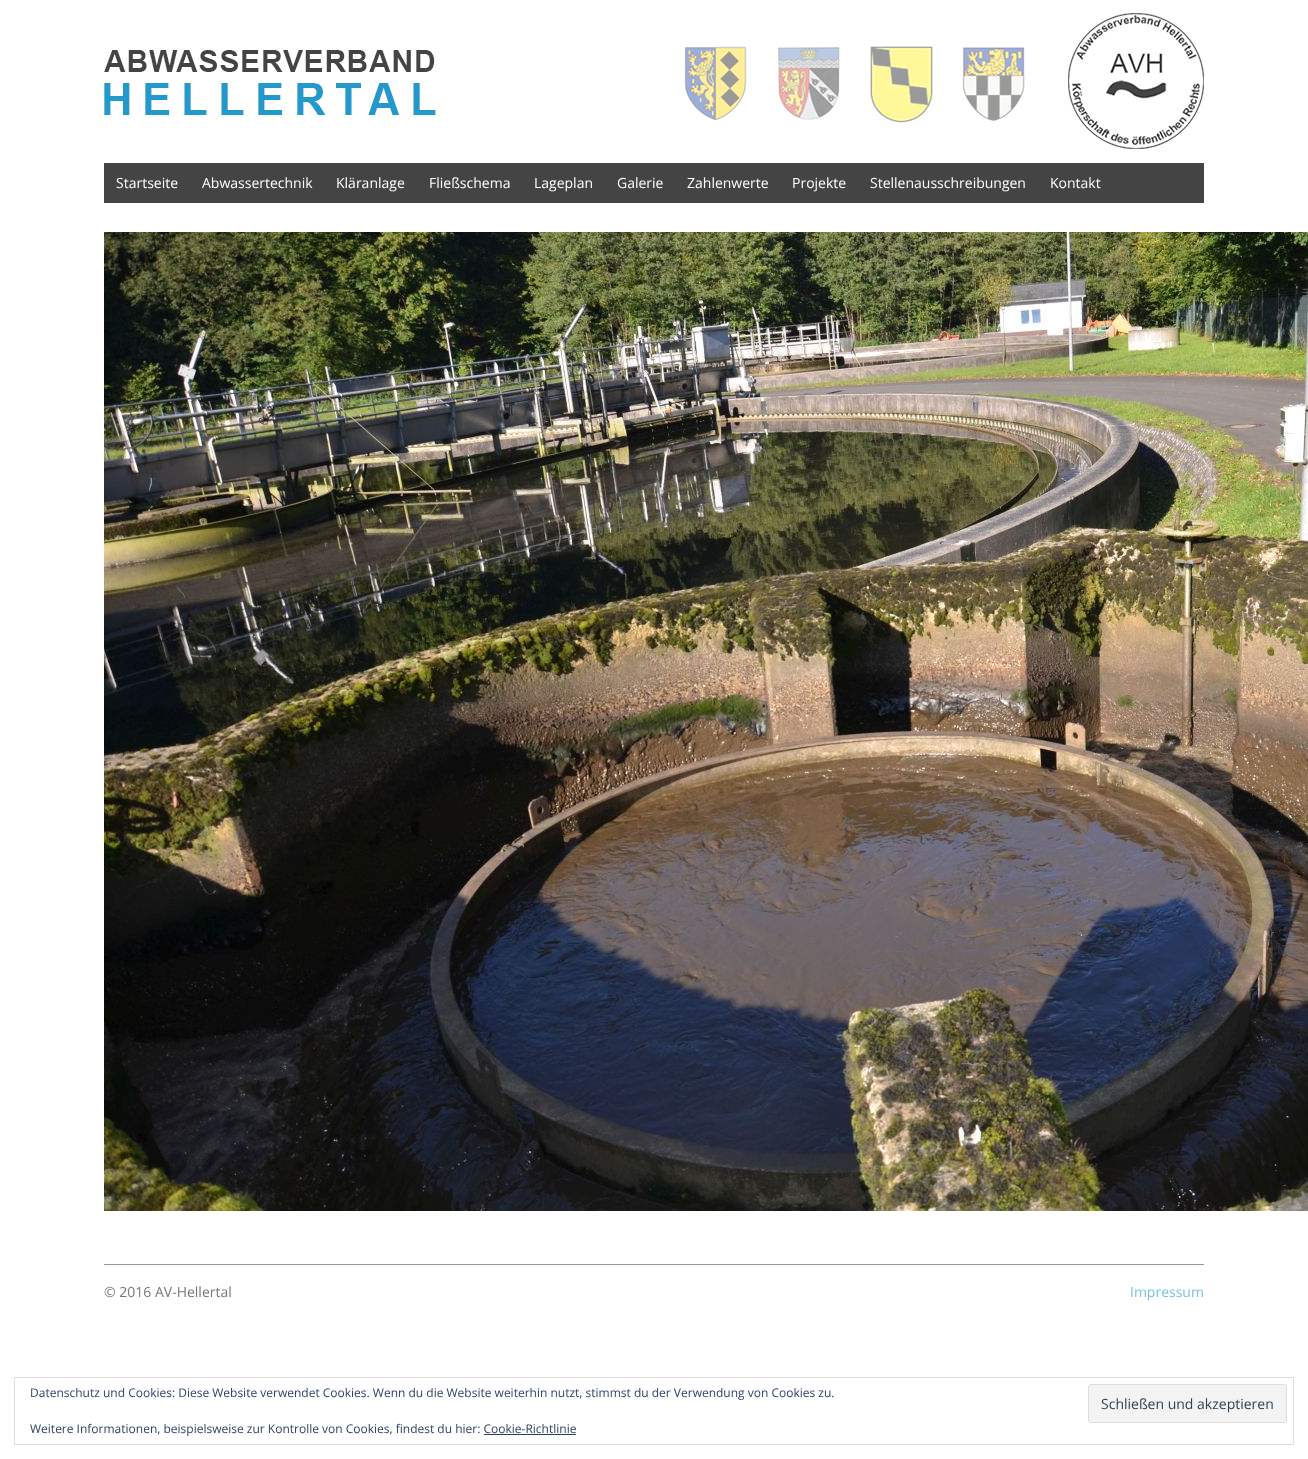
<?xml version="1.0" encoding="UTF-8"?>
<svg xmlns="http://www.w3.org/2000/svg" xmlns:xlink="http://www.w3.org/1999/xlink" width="1308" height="1459">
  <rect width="100%" height="100%" fill="#ffffff" />
  <image x="104" y="50" width="332" height="65" xlink:href="image1.png" />
  <image x="684" y="46" width="63" height="75" xlink:href="image2.png" />
  <image x="778" y="47" width="62" height="73" xlink:href="image3.png" />
  <image x="870" y="46" width="63" height="77" xlink:href="image4.png" />
  <image x="962" y="47" width="63" height="74" xlink:href="image5.png" />
  <image x="1068" y="13" width="136" height="136" xlink:href="image6.png" />
  <rect x="104" y="163" width="1100" height="40" fill="#444444" />
  <image x="104" y="232" width="1204" height="979" xlink:href="image7.png" />
  <rect x="104" y="1264" width="1100" height="1" fill="#999999" />
  <rect x="14.5" y="1377.5" width="1279" height="67" fill="none" stroke="#dedede" />
  <rect x="1088.5" y="1384.5" width="198" height="38" rx="2.5" fill="#f3f3f3" stroke="#dedede" />
  <rect x="484" y="1434" width="92" height="1" fill="#2e4467" />
  <text x="116" y="188" style="font-family: Open Sans; font-size: 14px; fill: #ffffff">Startseite</text>
  <text x="202" y="188" style="font-family: Open Sans; font-size: 14px; fill: #ffffff">Abwassertechnik</text>
  <text x="336" y="188" style="font-family: Open Sans; font-size: 14px; fill: #ffffff">Kläranlage</text>
  <text x="429" y="188" style="font-family: Open Sans; font-size: 14px; fill: #ffffff">Fließschema</text>
  <text x="534" y="188" style="font-family: Open Sans; font-size: 14px; fill: #ffffff">Lageplan</text>
  <text x="617" y="188" style="font-family: Open Sans; font-size: 14px; fill: #ffffff">Galerie</text>
  <text x="687" y="188" style="font-family: Open Sans; font-size: 14px; fill: #ffffff">Zahlenwerte</text>
  <text x="792" y="188" style="font-family: Open Sans; font-size: 14px; fill: #ffffff">Projekte</text>
  <text x="870" y="188" style="font-family: Open Sans; font-size: 14px; fill: #ffffff">Stellenausschreibungen</text>
  <text x="1050" y="188" style="font-family: Open Sans; font-size: 14px; fill: #ffffff">Kontakt</text>
  <text x="104" y="1297" style="font-family: Open Sans; font-size: 14px; fill: #777777">© 2016 AV-Hellertal</text>
  <text x="1130" y="1297" style="font-family: Open Sans; font-size: 14px; fill: #7ac2e0">Impressum</text>
  <text x="30" y="1397" style="font-family: Open Sans; font-size: 12px; fill: #2e4467">Datenschutz und Cookies: Diese Website verwendet Cookies. Wenn du die Website weiterhin nutzt, stimmst du der Verwendung von Cookies zu.</text>
  <text x="1101" y="1409" style="font-family: Open Sans; font-size: 14px; fill: #2e4453">Schließen und akzeptieren</text>
  <text x="30" y="1433" style="font-family: Open Sans; font-size: 12px; fill: #2e4467">Weitere Informationen, beispielsweise zur Kontrolle von Cookies, findest du hier: Cookie-Richtlinie</text>
</svg>
